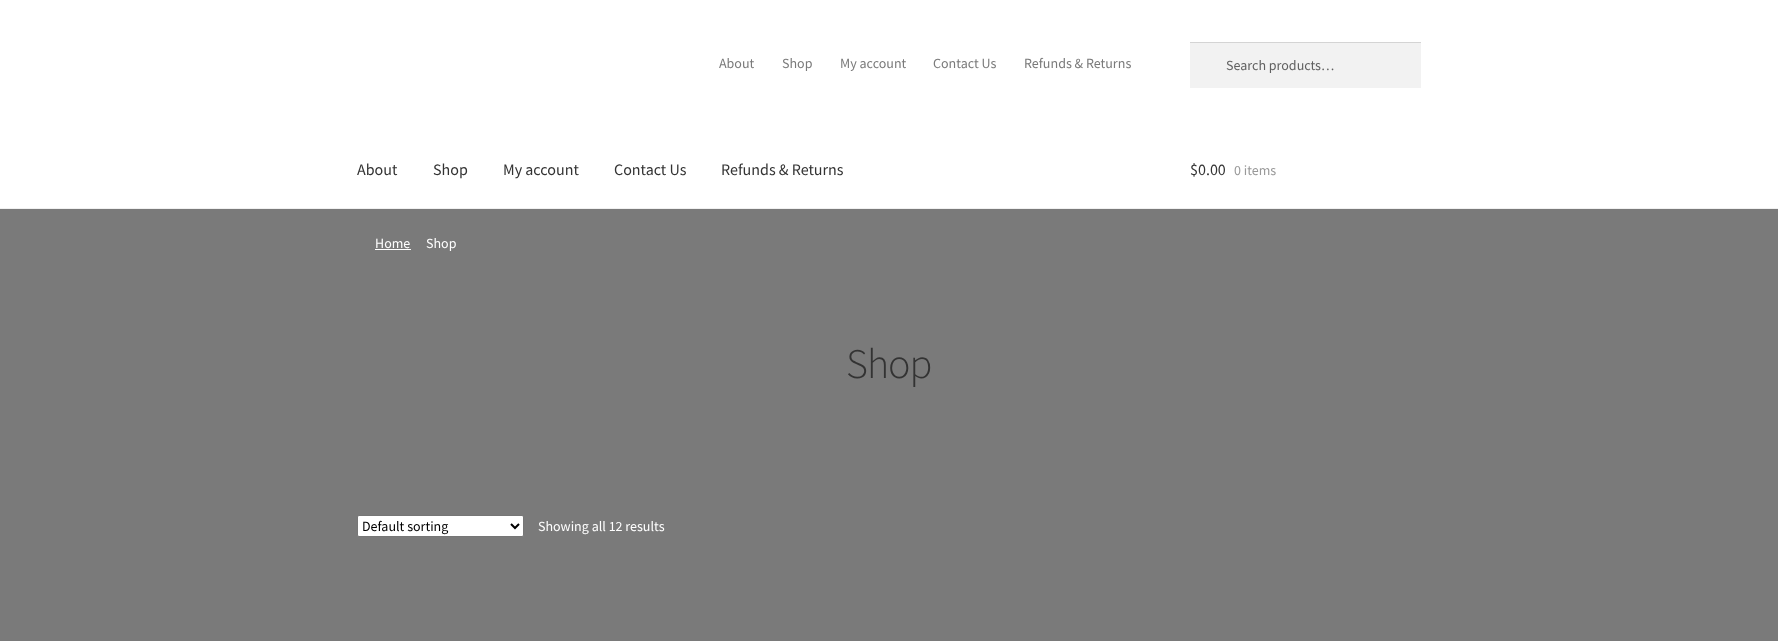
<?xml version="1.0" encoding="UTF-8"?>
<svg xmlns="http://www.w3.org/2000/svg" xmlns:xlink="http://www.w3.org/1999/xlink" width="1778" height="641">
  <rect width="100%" height="100%" fill="#7a7a7a" />
  <rect width="1778" height="208" fill="#ffffff" />
  <rect y="208" width="1778" height="1" fill="#f0f0f0" />
  <rect x="1190" y="43" width="231" height="45" fill="#f2f2f2" />
  <rect x="1190" y="42" width="231" height="1" fill="#d4d4d4" />
  <rect x="375" y="249" width="36" height="1" fill="#ffffff" />
  <rect x="357.5" y="515.5" width="166" height="21" rx="1.5" fill="#ffffff" stroke="#767676" />
  <path d="M 511 524 l 4 4 l 4 -4" fill="none" stroke="#000000" stroke-width="2" />
  <text x="719" y="68" style="font-family: Source Sans Pro; font-size: 14px; fill: #7a7a7a">About</text>
  <text x="782" y="68" style="font-family: Source Sans Pro; font-size: 14px; fill: #7a7a7a">Shop</text>
  <text x="840" y="68" style="font-family: Source Sans Pro; font-size: 14px; fill: #7a7a7a">My account</text>
  <text x="933" y="68" style="font-family: Source Sans Pro; font-size: 14px; fill: #7a7a7a">Contact Us</text>
  <text x="1024" y="68" style="font-family: Source Sans Pro; font-size: 14px; fill: #7a7a7a">Refunds &amp; Returns</text>
  <text x="1226" y="70" style="font-family: Source Sans Pro; font-size: 14px; fill: #616161">Search products…</text>
  <text x="357" y="175" style="font-family: Source Sans Pro; font-size: 16px; fill: #333333">About</text>
  <text x="433" y="175" style="font-family: Source Sans Pro; font-size: 16px; fill: #333333">Shop</text>
  <text x="503" y="175" style="font-family: Source Sans Pro; font-size: 16px; fill: #333333">My account</text>
  <text x="614" y="175" style="font-family: Source Sans Pro; font-size: 16px; fill: #333333">Contact Us</text>
  <text x="721" y="175" style="font-family: Source Sans Pro; font-size: 16px; fill: #333333">Refunds &amp; Returns</text>
  <text x="1190" y="175" style="font-family: Source Sans Pro; font-size: 16px; fill: #333333">$0.00</text>
  <text x="1234" y="175" style="font-family: Source Sans Pro; font-size: 14px; fill: #999999">0 items</text>
  <text x="375" y="248" style="font-family: Source Sans Pro; font-size: 14px; fill: #ffffff">Home</text>
  <text x="426" y="248" style="font-family: Source Sans Pro; font-size: 14px; fill: #ffffff">Shop</text>
  <text x="846" y="378" style="font-family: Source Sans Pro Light; font-size: 42px; font-weight: 300; letter-spacing: -1px; fill: #333333">Shop</text>
  <text x="362" y="531" style="font-family: Source Sans Pro; font-size: 14px; fill: #000000">Default sorting</text>
  <text x="538" y="531" style="font-family: Source Sans Pro; font-size: 14px; fill: #ffffff">Showing all 12 results</text>
</svg>
